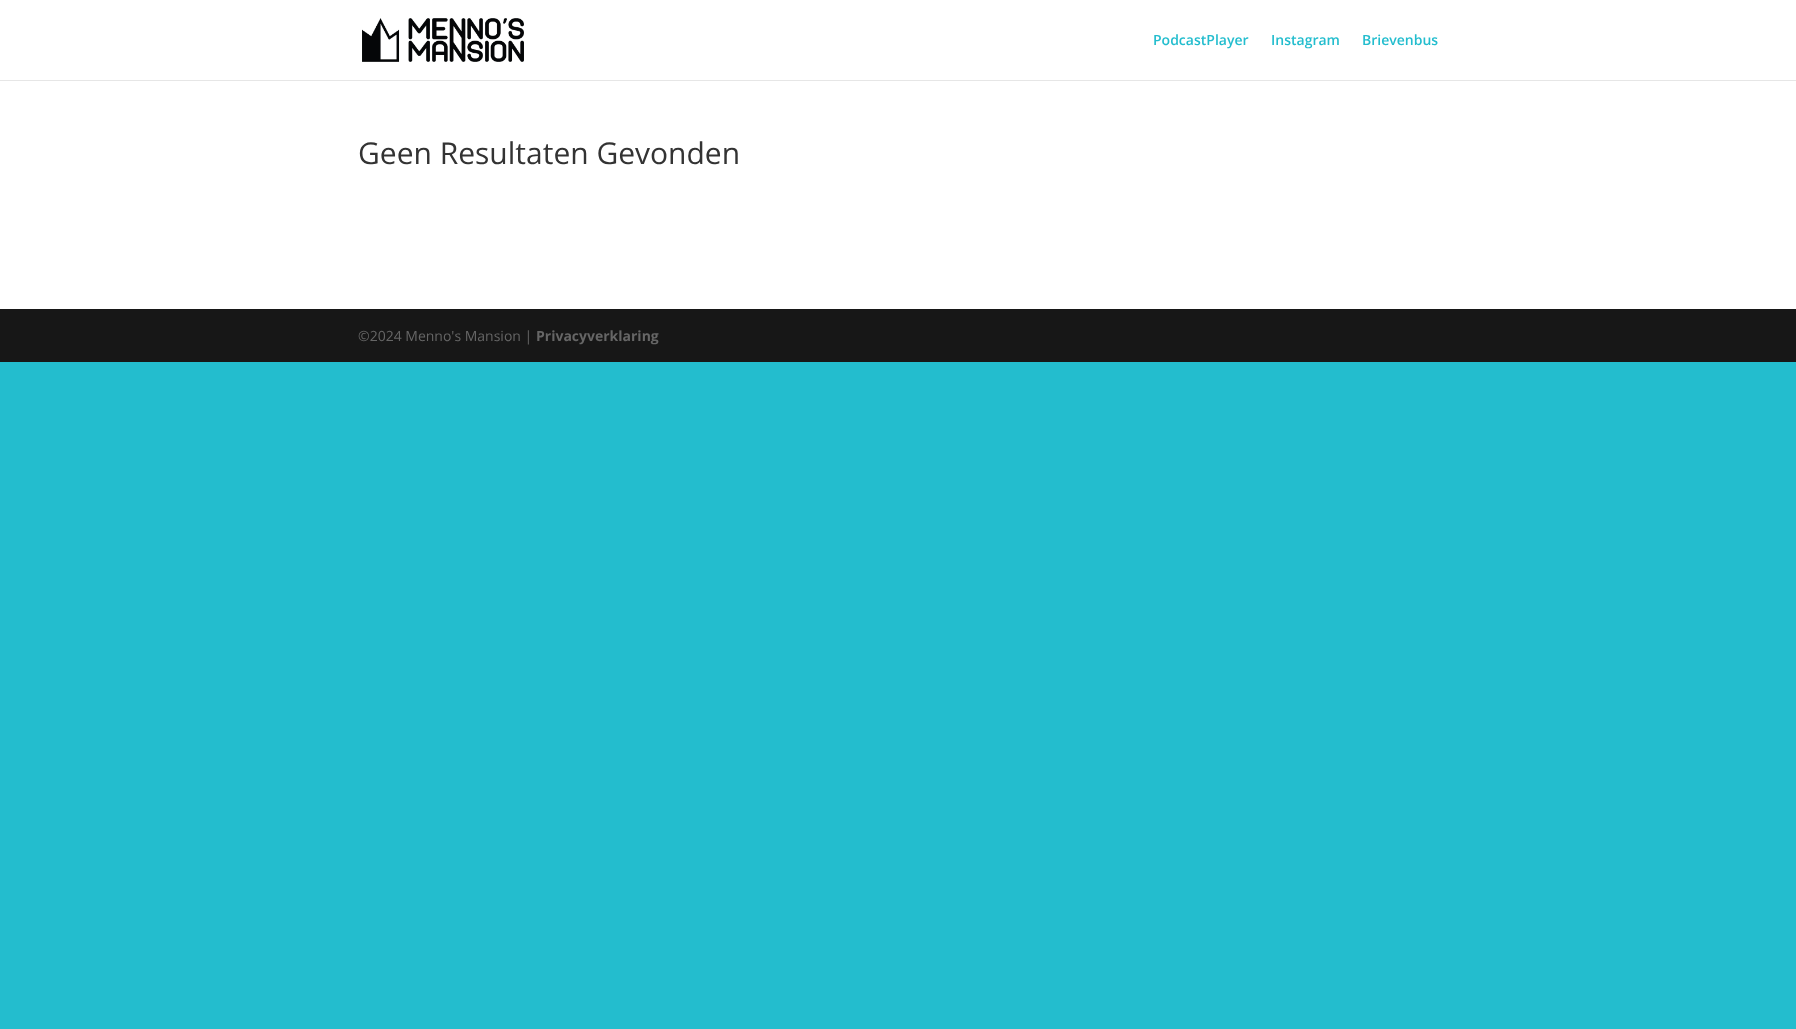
<?xml version="1.0" encoding="UTF-8"?>
<svg xmlns="http://www.w3.org/2000/svg" xmlns:xlink="http://www.w3.org/1999/xlink" width="1796" height="1029">
  <rect width="100%" height="100%" fill="#23bdce" />
  <rect y="80" width="1796" height="1" fill="#e6e6e6" />
  <rect width="1796" height="80" fill="#ffffff" />
  <image x="362" y="18" width="162" height="44" xlink:href="image1.png" />
  <rect y="81" width="1796" height="228" fill="#ffffff" />
  <rect y="309" width="1796" height="53" fill="#171717" />
  <text x="1153" y="45" style="font-family: Open Sans; font-size: 14px; font-weight: 600; fill: #23bdce">PodcastPlayer</text>
  <text x="1271" y="45" style="font-family: Open Sans; font-size: 14px; font-weight: 600; fill: #23bdce">Instagram</text>
  <text x="1362" y="45" style="font-family: Open Sans; font-size: 14px; font-weight: 600; fill: #23bdce">Brievenbus</text>
  <text x="358" y="164" style="font-family: Open Sans; font-size: 30px; fill: #333333">Geen Resultaten Gevonden</text>
  <text x="358" y="341" style="font-family: Open Sans; font-size: 14px; fill: #666666">©2024 Menno's Mansion |</text>
  <text x="536" y="341" style="font-family: Open Sans; font-size: 14px; font-weight: bold; fill: #666666">Privacyverklaring</text>
</svg>
